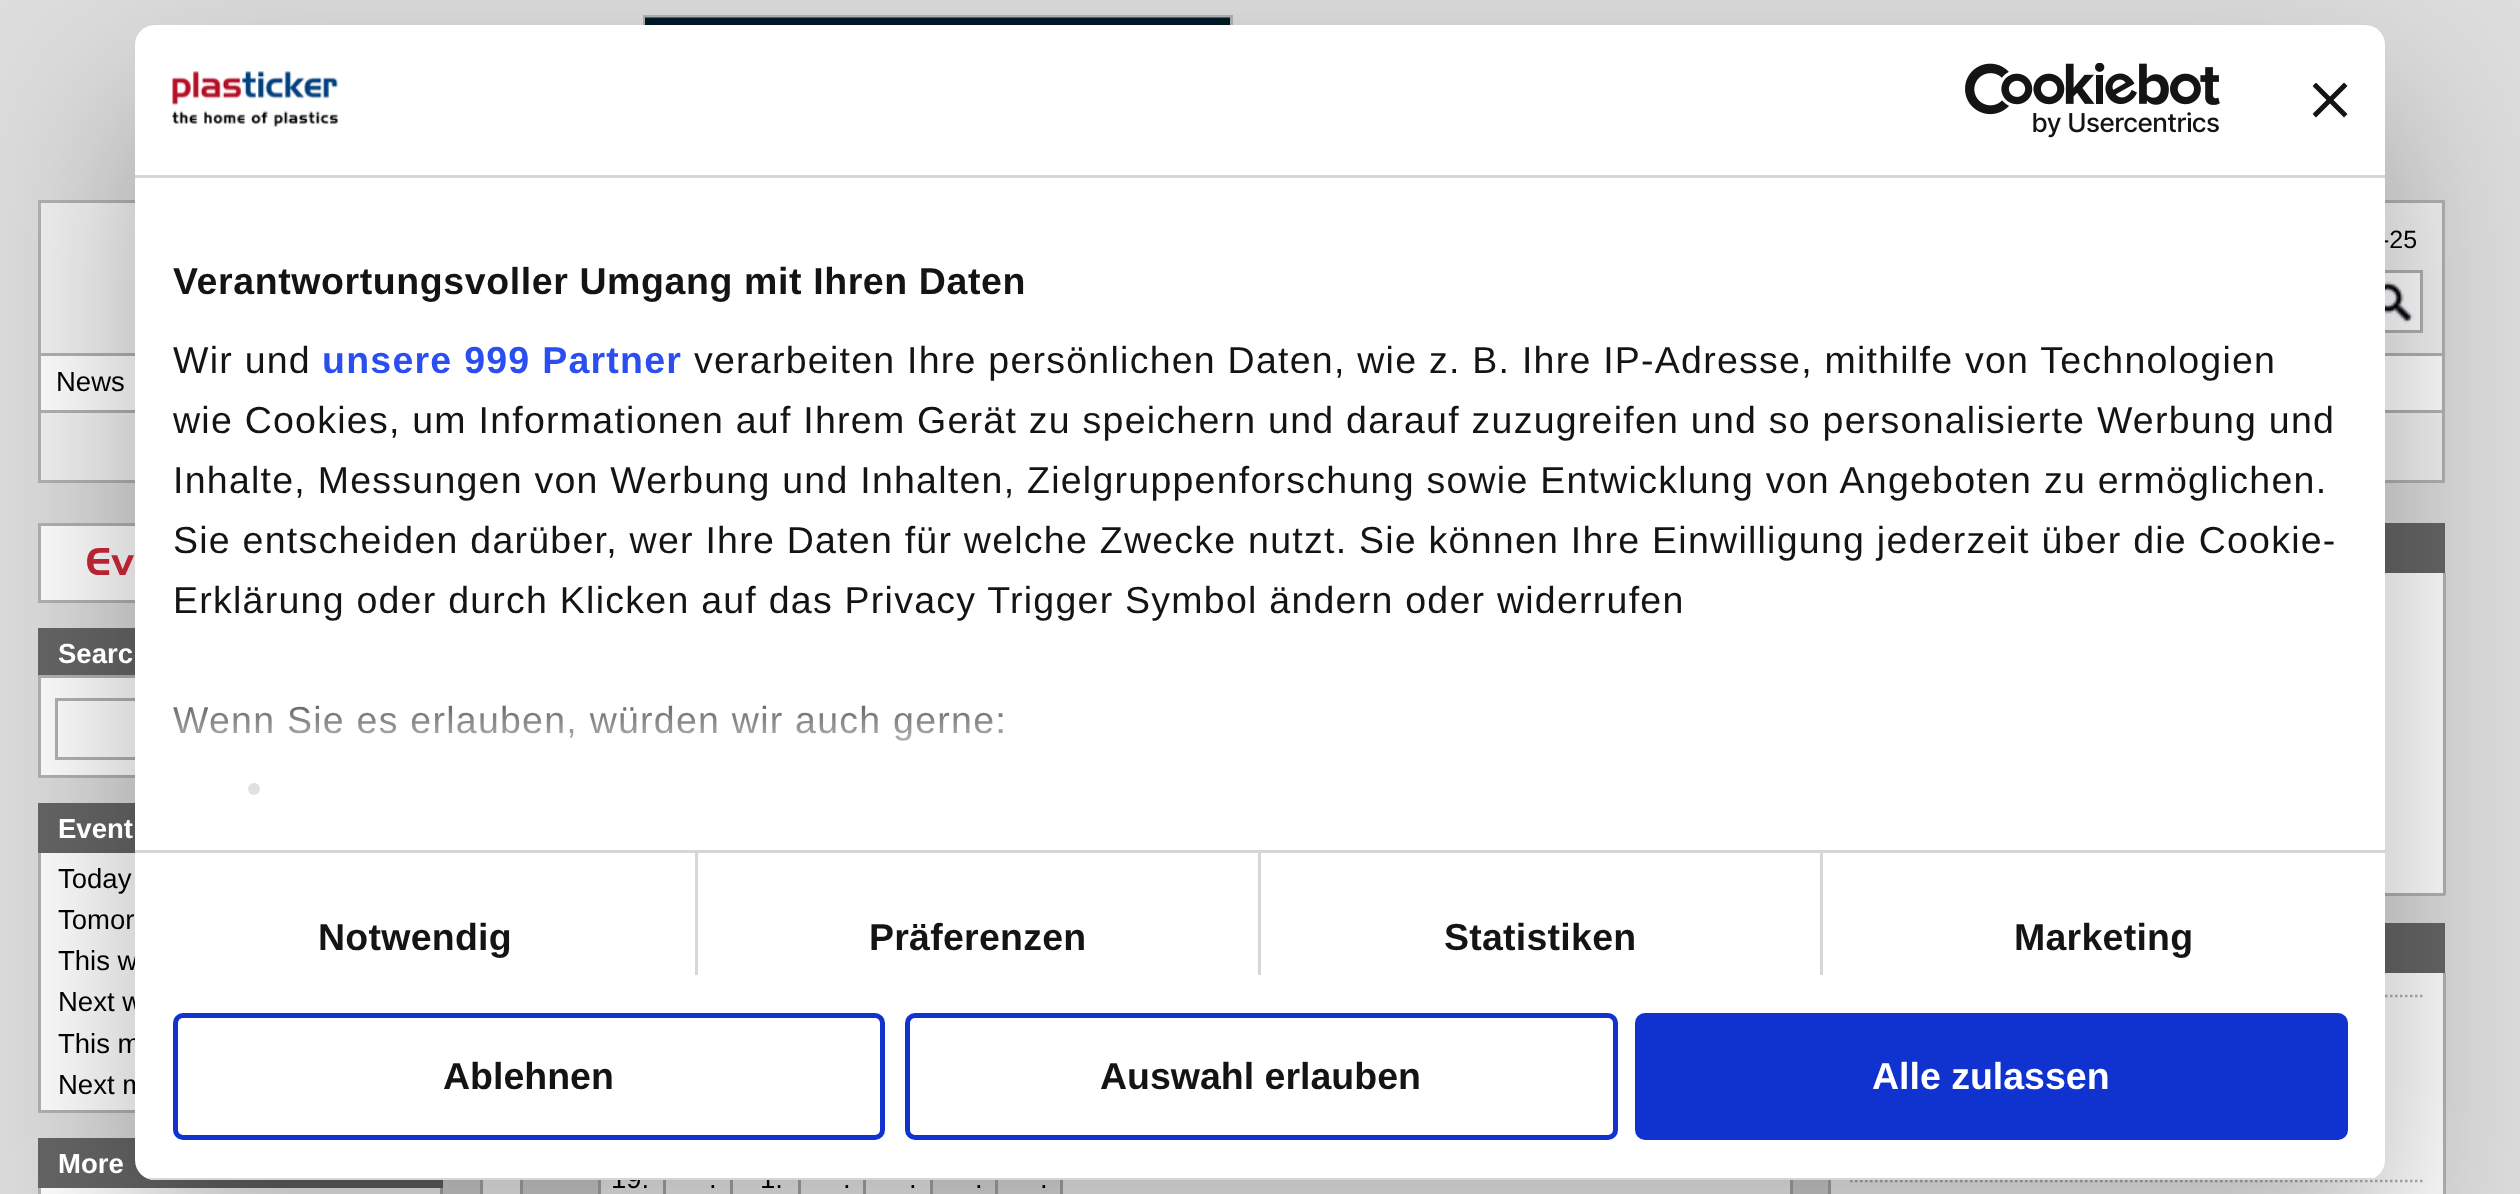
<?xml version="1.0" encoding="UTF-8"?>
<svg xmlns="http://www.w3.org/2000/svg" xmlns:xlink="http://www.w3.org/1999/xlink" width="2520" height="1194">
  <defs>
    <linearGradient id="g1" gradientUnits="userSpaceOnUse" x1="1244" y1="850" x2="1244" y2="663"><stop offset="0" stop-color="#ffffff" /><stop offset="0.5" stop-color="#ffffff" stop-opacity="0.8" /><stop offset="1" stop-color="#ffffff" stop-opacity="0" /></linearGradient>
    <clipPath id="clip1"><rect x="135" y="25" width="2250" height="1155" rx="20" /></clipPath>
    <clipPath id="clip2"><rect x="2313" y="83" width="35" height="35" /></clipPath>
  </defs>
  <rect width="100%" height="100%" fill="#dddddd" />
  <rect x="644.5" y="16.5" width="587" height="152" fill="none" stroke="#b2b2b2" stroke-width="3" />
  <image x="645" y="17" width="585" height="8" xlink:href="image1.png" />
  <rect x="39.5" y="201.5" width="2404" height="280" fill="#f2f2f2" stroke="#b2b2b2" stroke-width="3" />
  <rect x="2385" y="273" width="35" height="57" fill="#ffffff" />
  <rect x="2361.5" y="271.5" width="60" height="60" fill="none" stroke="#b2b2b2" stroke-width="3" />
  <image x="2385" y="281" width="29" height="43" xlink:href="image2.png" />
  <rect x="39.5" y="354.5" width="2404" height="57" fill="#ffffff" stroke="#b2b2b2" stroke-width="3" />
  <rect x="41" y="526" width="94" height="74" fill="#ffffff" />
  <rect x="39.5" y="524.5" width="402" height="77" fill="none" stroke="#b2b2b2" stroke-width="3" />
  <rect x="38" y="628" width="97" height="47" fill="#666666" />
  <rect x="41" y="678" width="94" height="97" fill="#ffffff" />
  <rect x="38" y="675" width="97" height="3" fill="#b2b2b2" />
  <rect x="38" y="775" width="97" height="3" fill="#b2b2b2" />
  <rect x="38" y="675" width="3" height="103" fill="#b2b2b2" />
  <rect x="56.5" y="699.5" width="300" height="59" fill="none" stroke="#b2b2b2" stroke-width="3" />
  <rect x="38" y="803" width="97" height="50" fill="#666666" />
  <rect x="41" y="853" width="94" height="257" fill="#ffffff" />
  <rect x="38" y="1110" width="97" height="3" fill="#b2b2b2" />
  <rect x="38" y="853" width="3" height="260" fill="#b2b2b2" />
  <rect x="38" y="1138" width="405" height="50" fill="#666666" />
  <rect x="38" y="1188" width="405" height="6" fill="#ffffff" />
  <rect x="440" y="1188" width="3" height="6" fill="#b2b2b2" />
  <rect x="38" y="1188" width="3" height="6" fill="#b2b2b2" />
  <rect x="2385" y="523" width="60" height="50" fill="#666666" />
  <rect x="2385" y="573" width="58" height="320" fill="#ffffff" />
  <rect x="2443" y="573" width="3" height="322" fill="#b2b2b2" />
  <rect x="2385" y="893" width="60" height="3" fill="#b2b2b2" />
  <rect x="2385" y="923" width="60" height="50" fill="#666666" />
  <rect x="1831" y="973" width="612" height="221" fill="#ffffff" />
  <rect x="2443" y="973" width="3" height="221" fill="#b2b2b2" />
  <rect x="1828" y="1180" width="3" height="14" fill="#b2b2b2" />
  <path d="M 1850 996 h 572.5" fill="none" stroke="#b2b2b2" stroke-width="2.5" stroke-dasharray="2.5 2.5" />
  <path d="M 1850 1181 h 572.5" fill="none" stroke="#b2b2b2" stroke-width="2.5" stroke-dasharray="2.5 2.5" />
  <rect x="483" y="1180" width="1307" height="14" fill="#ffffff" />
  <rect x="481.5" y="524.5" width="1310" height="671" fill="none" stroke="#b2b2b2" stroke-width="3" />
  <rect x="1060" y="1180" width="3" height="14" fill="#b2b2b2" />
  <rect x="520" y="1180" width="3" height="14" fill="#b2b2b2" />
  <rect x="523" y="1180" width="75" height="14" fill="#dddddd" />
  <rect x="598" y="1180" width="3" height="14" fill="#b2b2b2" />
  <rect x="663" y="1180" width="3" height="14" fill="#b2b2b2" />
  <rect x="730" y="1180" width="3" height="14" fill="#b2b2b2" />
  <rect x="798" y="1180" width="3" height="14" fill="#b2b2b2" />
  <rect x="863" y="1180" width="3" height="14" fill="#b2b2b2" />
  <rect x="930" y="1180" width="3" height="14" fill="#b2b2b2" />
  <rect x="933" y="1180" width="62" height="14" fill="#eeeeee" />
  <rect x="995" y="1180" width="3" height="14" fill="#b2b2b2" />
  <rect x="998" y="1180" width="62" height="14" fill="#eeeeee" />
  <rect x="135" y="105" width="2250" height="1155" rx="20" fill="#000000" fill-opacity="0.3" filter="blur(85px)" />
  <text x="2381" y="248" style="font-family: Liberation Sans; font-size: 25px; fill: #000000">-25</text>
  <text x="56" y="391" style="font-family: Liberation Sans; font-size: 27.5px; fill: #000000">News</text>
  <text x="86" y="575" style="font-family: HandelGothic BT; font-size: 37.5px; fill: #b72332">Ev</text>
  <text x="58" y="663" style="font-family: Liberation Sans; font-size: 27.5px; font-weight: bold; fill: #ffffff">Searc</text>
  <text x="58" y="838" style="font-family: Liberation Sans; font-size: 27.5px; font-weight: bold; fill: #ffffff">Event</text>
  <text x="58" y="888" style="font-family: Liberation Sans; font-size: 27.5px; fill: #000000">Today</text>
  <text x="58" y="929" style="font-family: Liberation Sans; font-size: 27.5px; fill: #000000">Tomor</text>
  <text x="58" y="970" style="font-family: Liberation Sans; font-size: 27.5px; fill: #000000">This w</text>
  <text x="58" y="1011" style="font-family: Liberation Sans; font-size: 27.5px; fill: #000000">Next w</text>
  <text x="58" y="1053" style="font-family: Liberation Sans; font-size: 27.5px; fill: #000000">This m</text>
  <text x="58" y="1094" style="font-family: Liberation Sans; font-size: 27.5px; fill: #000000">Next m</text>
  <text x="58" y="1173" style="font-family: Liberation Sans; font-size: 27.5px; font-weight: bold; fill: #ffffff">More</text>
  <text x="611" y="1188" style="font-family: Liberation Sans; font-size: 27.5px; fill: #000000">19.</text>
  <text x="709" y="1188" style="font-family: Liberation Sans; font-size: 27.5px; fill: #000000">.</text>
  <text x="760" y="1188" style="font-family: Liberation Sans; font-size: 27.5px; fill: #000000">1.</text>
  <rect x="135" y="25" width="2250" height="1155" rx="20" fill="#ffffff" />
  <circle cx="254" cy="789" r="6" fill="#141414" />
  <text x="173" y="733" style="font-family: Liberation Sans; font-size: 37.5px; letter-spacing: 1.25px; fill: #141414">Wenn Sie es erlauben, würden wir auch gerne:</text>
  <rect x="172" y="705" width="830" height="90" fill="url(#g1)" />
  <rect x="1637.5" y="1015.5" width="708" height="122" rx="7.5" fill="#1032cf" stroke="#1032cf" stroke-width="5" />
  <text x="1872" y="1089" style="font-family: Liberation Sans; font-size: 37.5px; font-weight: bold; fill: #ffffff">Alle zulassen</text>
  <rect x="907.5" y="1015.5" width="708" height="122" rx="7.5" fill="none" stroke="#1032cf" stroke-width="5" />
  <text x="1100" y="1089" style="font-family: Liberation Sans; font-size: 37.5px; font-weight: bold; fill: #141414">Auswahl erlauben</text>
  <rect x="175.5" y="1015.5" width="707" height="122" rx="7.5" fill="none" stroke="#1032cf" stroke-width="5" />
  <text x="443" y="1089" style="font-family: Liberation Sans; font-size: 37.5px; font-weight: bold; fill: #141414">Ablehnen</text>
  <g clip-path="url(#clip1)">
    <rect x="146" y="1178" width="2228" height="2" fill="#d6d6d6" />
  </g>
  <text x="173" y="613" style="font-family: Liberation Sans; font-size: 37.5px; letter-spacing: 1.25px; fill: #141414">Erklärung oder durch Klicken auf das Privacy Trigger Symbol ändern oder widerrufen</text>
  <text x="173" y="553" style="font-family: Liberation Sans; font-size: 37.5px; letter-spacing: 1.25px; fill: #141414">Sie entscheiden darüber, wer Ihre Daten für welche Zwecke nutzt. Sie können Ihre Einwilligung jederzeit über die Cookie-</text>
  <text x="173" y="493" style="font-family: Liberation Sans; font-size: 37.5px; letter-spacing: 1.25px; fill: #141414">Inhalte, Messungen von Werbung und Inhalten, Zielgruppenforschung sowie Entwicklung von Angeboten zu ermöglichen.</text>
  <text x="173" y="433" style="font-family: Liberation Sans; font-size: 37.5px; letter-spacing: 1.25px; fill: #141414">wie Cookies, um Informationen auf Ihrem Gerät zu speichern und darauf zuzugreifen und so personalisierte Werbung und</text>
  <text x="694" y="373" style="font-family: Liberation Sans; font-size: 37.5px; letter-spacing: 1.25px; fill: #141414">verarbeiten Ihre persönlichen Daten, wie z. B. Ihre IP-Adresse, mithilfe von Technologien</text>
  <text x="322" y="373" style="font-family: Liberation Sans; font-size: 37.5px; font-weight: bold; letter-spacing: 1.25px; fill: #2a4eef">unsere 999 Partner</text>
  <text x="173" y="373" style="font-family: Liberation Sans; font-size: 37.5px; letter-spacing: 1.25px; fill: #141414">Wir und</text>
  <text x="173" y="294" style="font-family: Liberation Sans; font-size: 37.5px; font-weight: bold; letter-spacing: 0.6px; fill: #141414">Verantwortungsvoller Umgang mit Ihren Daten</text>
  <rect x="135" y="850" width="2250" height="3" fill="#d6d6d6" />
  <text x="2014" y="950" style="font-family: Liberation Sans; font-size: 37.5px; font-weight: bold; letter-spacing: 0.25px; fill: #141414">Marketing</text>
  <text x="1444" y="950" style="font-family: Liberation Sans; font-size: 37.5px; font-weight: bold; letter-spacing: 0.25px; fill: #141414">Statistiken</text>
  <rect x="1820" y="853" width="3" height="122" fill="#d6d6d6" />
  <text x="869" y="950" style="font-family: Liberation Sans; font-size: 37.5px; font-weight: bold; letter-spacing: 0.25px; fill: #141414">Präferenzen</text>
  <rect x="1258" y="853" width="3" height="122" fill="#d6d6d6" />
  <text x="318" y="950" style="font-family: Liberation Sans; font-size: 37.5px; font-weight: bold; letter-spacing: 0.25px; fill: #141414">Notwendig</text>
  <rect x="695" y="853" width="3" height="122" fill="#d6d6d6" />
  <g clip-path="url(#clip2)">
    <path d="M 2347.5 86 l -3.5 -3.5 l -14 14 l -14 -14 l -3.5 3.5 l 14 14 l -14 14 l 3.5 3.5 l 14 -14 l 14 14 l 3.5 -3.5 l -14 -14 z" fill="#141414" />
  </g>
  <image x="1965" y="63" width="255" height="75" xlink:href="image4.png" />
  <image x="172" y="71" width="166" height="57" xlink:href="image3.png" />
  <rect x="135" y="175" width="2250" height="3" fill="#d6d6d6" />
  <text x="843" y="1188" style="font-family: Liberation Sans; font-size: 27.5px; fill: #000000">.</text>
  <text x="909" y="1188" style="font-family: Liberation Sans; font-size: 27.5px; fill: #000000">.</text>
  <text x="975" y="1188" style="font-family: Liberation Sans; font-size: 27.5px; fill: #000000">.</text>
  <text x="1040" y="1188" style="font-family: Liberation Sans; font-size: 27.5px; fill: #000000">.</text>
</svg>
